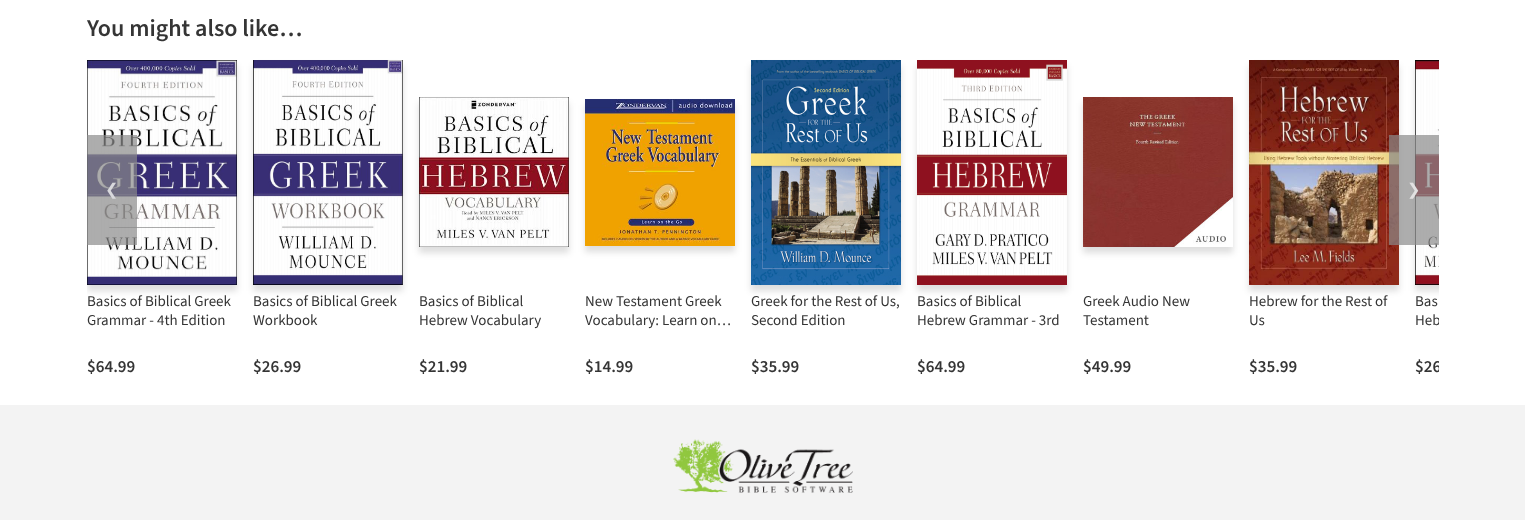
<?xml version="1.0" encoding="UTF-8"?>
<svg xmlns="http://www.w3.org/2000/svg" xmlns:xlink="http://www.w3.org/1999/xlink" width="1525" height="520">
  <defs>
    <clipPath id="clip1"><rect x="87" y="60" width="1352" height="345" /></clipPath>
    <clipPath id="clip2"><rect x="1415" y="293" width="24" height="38" /></clipPath>
    <clipPath id="clip3"><rect x="87" y="60" width="1352" height="345" /></clipPath>
  </defs>
  <rect width="100%" height="100%" fill="#ffffff" />
  <g clip-path="url(#clip1)">
    <rect x="87" y="66" width="150" height="225" fill="#000000" fill-opacity="0.13" filter="blur(3px)" />
  </g>
  <image x="87" y="60" width="150" height="225" xlink:href="image1.png" />
  <rect x="87" y="135" width="50" height="110" fill="#8a8a8a" fill-opacity="0.7" />
  <rect x="1249" y="66" width="150" height="225" fill="#000000" fill-opacity="0.13" filter="blur(3px)" />
  <image x="1249" y="60" width="150" height="225" xlink:href="image8.png" />
  <g clip-path="url(#clip1)">
    <rect x="1415" y="66" width="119" height="225" fill="#000000" fill-opacity="0.13" filter="blur(3px)" />
  </g>
  <image x="1415" y="60" width="24" height="225" xlink:href="image9.png" />
  <rect x="1389" y="135" width="50" height="110" fill="#8a8a8a" fill-opacity="0.7" />
  <rect x="253" y="66" width="150" height="225" fill="#000000" fill-opacity="0.13" filter="blur(3px)" />
  <image x="253" y="60" width="150" height="225" xlink:href="image2.png" />
  <rect x="419" y="103" width="150" height="150" fill="#000000" fill-opacity="0.13" filter="blur(3px)" />
  <image x="419" y="97" width="150" height="150" xlink:href="image3.png" />
  <rect x="585" y="105" width="150" height="147" fill="#000000" fill-opacity="0.13" filter="blur(3px)" />
  <image x="585" y="99" width="150" height="147" xlink:href="image4.png" />
  <rect x="751" y="66" width="150" height="225" fill="#000000" fill-opacity="0.13" filter="blur(3px)" />
  <image x="751" y="60" width="150" height="225" xlink:href="image5.png" />
  <rect x="917" y="66" width="150" height="225" fill="#000000" fill-opacity="0.13" filter="blur(3px)" />
  <image x="917" y="60" width="150" height="225" xlink:href="image6.png" />
  <rect x="1083" y="103" width="150" height="150" fill="#000000" fill-opacity="0.13" filter="blur(3px)" />
  <image x="1083" y="97" width="150" height="150" xlink:href="image7.png" />
  <rect y="405" width="1525" height="115" fill="#f3f3f3" />
  <image x="673" y="439" width="180" height="54" xlink:href="image10.png" />
  <text x="87" y="36" style="font-family: 'Source Sans 3'; font-size: 24px; font-weight: 600; fill: #353535">You might also like…</text>
  <text x="105" y="195" style="font-family: DejaVu Sans; font-size: 16px; fill: #d8d8dc">❮</text>
  <text x="1407" y="195" style="font-family: DejaVu Sans; font-size: 16px; fill: #e2e1e1">❯</text>
  <text x="87" y="306" style="font-family: 'Source Sans 3'; font-size: 15px; fill: #353535">Basics of Biblical Greek</text>
  <text x="87" y="325" style="font-family: 'Source Sans 3'; font-size: 15px; fill: #353535">Grammar - 4th Edition</text>
  <text x="87" y="372" style="font-family: 'Source Sans 3'; font-size: 17px; font-weight: 600; fill: #353535">$64.99</text>
  <text x="253" y="306" style="font-family: 'Source Sans 3'; font-size: 15px; fill: #353535">Basics of Biblical Greek</text>
  <text x="253" y="325" style="font-family: 'Source Sans 3'; font-size: 15px; fill: #353535">Workbook</text>
  <text x="253" y="372" style="font-family: 'Source Sans 3'; font-size: 17px; font-weight: 600; fill: #353535">$26.99</text>
  <text x="419" y="306" style="font-family: 'Source Sans 3'; font-size: 15px; fill: #353535">Basics of Biblical</text>
  <text x="419" y="325" style="font-family: 'Source Sans 3'; font-size: 15px; fill: #353535">Hebrew Vocabulary</text>
  <text x="419" y="372" style="font-family: 'Source Sans 3'; font-size: 17px; font-weight: 600; fill: #353535">$21.99</text>
  <text x="585" y="306" style="font-family: 'Source Sans 3'; font-size: 15px; fill: #353535">New Testament Greek</text>
  <text x="585" y="325" style="font-family: 'Source Sans 3'; font-size: 15px; fill: #353535">Vocabulary: Learn on…</text>
  <text x="585" y="372" style="font-family: 'Source Sans 3'; font-size: 17px; font-weight: 600; fill: #353535">$14.99</text>
  <text x="751" y="306" style="font-family: 'Source Sans 3'; font-size: 15px; fill: #353535">Greek for the Rest of Us,</text>
  <text x="751" y="325" style="font-family: 'Source Sans 3'; font-size: 15px; fill: #353535">Second Edition</text>
  <text x="751" y="372" style="font-family: 'Source Sans 3'; font-size: 17px; font-weight: 600; fill: #353535">$35.99</text>
  <text x="917" y="306" style="font-family: 'Source Sans 3'; font-size: 15px; fill: #353535">Basics of Biblical</text>
  <text x="917" y="325" style="font-family: 'Source Sans 3'; font-size: 15px; fill: #353535">Hebrew Grammar - 3rd</text>
  <text x="917" y="372" style="font-family: 'Source Sans 3'; font-size: 17px; font-weight: 600; fill: #353535">$64.99</text>
  <text x="1083" y="306" style="font-family: 'Source Sans 3'; font-size: 15px; fill: #353535">Greek Audio New</text>
  <text x="1083" y="325" style="font-family: 'Source Sans 3'; font-size: 15px; fill: #353535">Testament</text>
  <text x="1083" y="372" style="font-family: 'Source Sans 3'; font-size: 17px; font-weight: 600; fill: #353535">$49.99</text>
  <text x="1249" y="306" style="font-family: 'Source Sans 3'; font-size: 15px; fill: #353535">Hebrew for the Rest of</text>
  <text x="1249" y="325" style="font-family: 'Source Sans 3'; font-size: 15px; fill: #353535">Us</text>
  <text x="1249" y="372" style="font-family: 'Source Sans 3'; font-size: 17px; font-weight: 600; fill: #353535">$35.99</text>
  <text x="1415" y="306" style="font-family: 'Source Sans 3'; font-size: 15px; fill: #353535">Bas</text>
  <g clip-path="url(#clip2)">
    <text x="1415" y="325" style="font-family: 'Source Sans 3'; font-size: 15px; fill: #353535">Heb</text>
  </g>
  <g clip-path="url(#clip3)">
    <text x="1415" y="372" style="font-family: 'Source Sans 3'; font-size: 17px; font-weight: 600; fill: #353535">$26</text>
  </g>
</svg>
